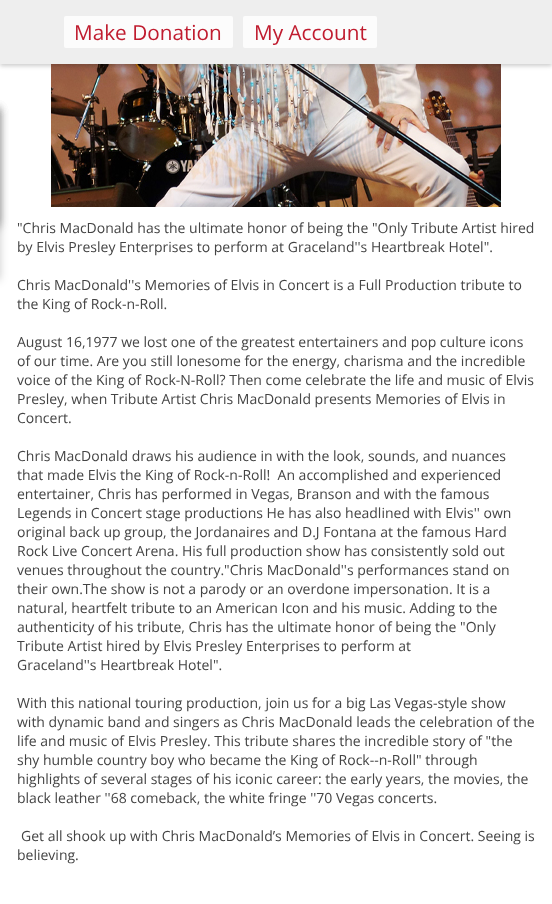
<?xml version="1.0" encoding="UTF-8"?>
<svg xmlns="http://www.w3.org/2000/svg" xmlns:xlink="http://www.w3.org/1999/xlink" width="552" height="904">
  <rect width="100%" height="100%" fill="#ffffff" />
  <image x="51" y="64" width="450" height="143" xlink:href="image1.png" />
  <rect y="2" width="552" height="64" fill="#000000" fill-opacity="0.2" filter="blur(2px)" />
  <rect width="552" height="64" fill="#eeeeee" />
  <rect x="64" y="16" width="169" height="32" rx="2" fill="#fcfcfc" />
  <rect x="243" y="16" width="134" height="32" rx="2" fill="#fcfcfc" />
  <rect x="-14" y="108" width="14" height="116" rx="2" fill="#000000" fill-opacity="0.2" filter="blur(4px)" />
  <rect x="-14" y="108" width="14" height="121" rx="2" fill="#000000" fill-opacity="0.2" filter="blur(4px)" />
  <rect x="-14" y="108" width="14" height="172" rx="2" fill="#000000" fill-opacity="0.2" filter="blur(4px)" />
  <text x="74" y="40" style="font-family: Open Sans; font-size: 20.75px; fill: #c01c2f">Make Donation</text>
  <text x="254" y="40" style="font-family: Open Sans; font-size: 20.75px; fill: #c01c2f">My Account</text>
  <text x="17" y="233" style="font-family: Open Sans; font-size: 14px; fill: #444444">"Chris MacDonald has the ultimate honor of being the "Only Tribute Artist hired</text>
  <text x="17" y="252" style="font-family: Open Sans; font-size: 14px; fill: #444444">by Elvis Presley Enterprises to perform at Graceland''s Heartbreak Hotel".</text>
  <text x="17" y="290" style="font-family: Open Sans; font-size: 14px; fill: #444444">Chris MacDonald''s Memories of Elvis in Concert is a Full Production tribute to</text>
  <text x="17" y="309" style="font-family: Open Sans; font-size: 14px; fill: #444444">the King of Rock-n-Roll.</text>
  <text x="17" y="347" style="font-family: Open Sans; font-size: 14px; fill: #444444">August 16,1977 we lost one of the greatest entertainers and pop culture icons</text>
  <text x="17" y="366" style="font-family: Open Sans; font-size: 14px; fill: #444444">of our time. Are you still lonesome for the energy, charisma and the incredible</text>
  <text x="17" y="385" style="font-family: Open Sans; font-size: 14px; fill: #444444">voice of the King of Rock-N-Roll? Then come celebrate the life and music of Elvis</text>
  <text x="17" y="404" style="font-family: Open Sans; font-size: 14px; fill: #444444">Presley, when Tribute Artist Chris MacDonald presents Memories of Elvis in</text>
  <text x="17" y="423" style="font-family: Open Sans; font-size: 14px; fill: #444444">Concert.</text>
  <text x="17" y="461" style="font-family: Open Sans; font-size: 14px; fill: #444444">Chris MacDonald draws his audience in with the look, sounds, and nuances</text>
  <text x="17" y="480" style="font-family: Open Sans; font-size: 14px; fill: #444444" xml:space="preserve">that made Elvis the King of Rock-n-Roll!  An accomplished and experienced</text>
  <text x="17" y="499" style="font-family: Open Sans; font-size: 14px; fill: #444444">entertainer, Chris has performed in Vegas, Branson and with the famous</text>
  <text x="17" y="518" style="font-family: Open Sans; font-size: 14px; fill: #444444">Legends in Concert stage productions He has also headlined with Elvis'' own</text>
  <text x="17" y="537" style="font-family: Open Sans; font-size: 14px; fill: #444444">original back up group, the Jordanaires and D.J Fontana at the famous Hard</text>
  <text x="17" y="556" style="font-family: Open Sans; font-size: 14px; fill: #444444">Rock Live Concert Arena. His full production show has consistently sold out</text>
  <text x="17" y="575" style="font-family: Open Sans; font-size: 14px; fill: #444444">venues throughout the country."Chris MacDonald''s performances stand on</text>
  <text x="17" y="594" style="font-family: Open Sans; font-size: 14px; fill: #444444">their own.The show is not a parody or an overdone impersonation. It is a</text>
  <text x="17" y="613" style="font-family: Open Sans; font-size: 14px; fill: #444444">natural, heartfelt tribute to an American Icon and his music. Adding to the</text>
  <text x="17" y="632" style="font-family: Open Sans; font-size: 14px; fill: #444444">authenticity of his tribute, Chris has the ultimate honor of being the "Only</text>
  <text x="17" y="651" style="font-family: Open Sans; font-size: 14px; fill: #444444">Tribute Artist hired by Elvis Presley Enterprises to perform at</text>
  <text x="17" y="670" style="font-family: Open Sans; font-size: 14px; fill: #444444">Graceland''s Heartbreak Hotel".</text>
  <text x="17" y="708" style="font-family: Open Sans; font-size: 14px; fill: #444444">With this national touring production, join us for a big Las Vegas-style show</text>
  <text x="17" y="727" style="font-family: Open Sans; font-size: 14px; fill: #444444">with dynamic band and singers as Chris MacDonald leads the celebration of the</text>
  <text x="17" y="746" style="font-family: Open Sans; font-size: 14px; fill: #444444">life and music of Elvis Presley. This tribute shares the incredible story of "the</text>
  <text x="17" y="765" style="font-family: Open Sans; font-size: 14px; fill: #444444">shy humble country boy who became the King of Rock--n-Roll" through</text>
  <text x="17" y="784" style="font-family: Open Sans; font-size: 14px; fill: #444444">highlights of several stages of his iconic career: the early years, the movies, the</text>
  <text x="17" y="803" style="font-family: Open Sans; font-size: 14px; fill: #444444">black leather ''68 comeback, the white fringe ''70 Vegas concerts.</text>
  <text x="21" y="841" style="font-family: Open Sans; font-size: 14px; fill: #444444">Get all shook up with Chris MacDonald’s Memories of Elvis in Concert. Seeing is</text>
  <text x="17" y="860" style="font-family: Open Sans; font-size: 14px; fill: #444444">believing.</text>
</svg>
